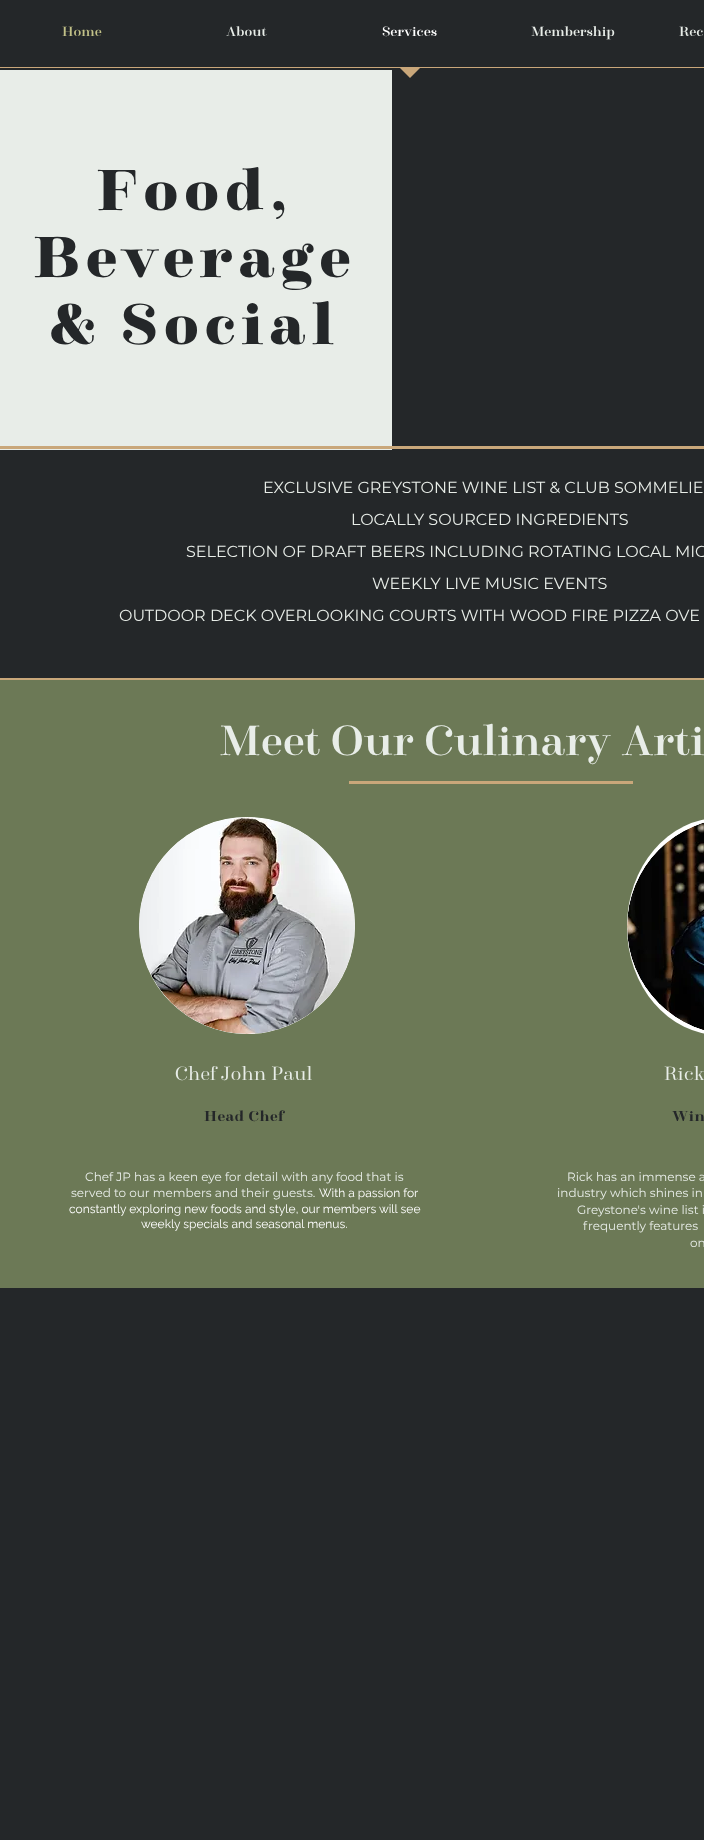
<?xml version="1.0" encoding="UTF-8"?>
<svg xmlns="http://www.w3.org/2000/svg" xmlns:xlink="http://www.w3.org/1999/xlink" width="704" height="1840">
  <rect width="100%" height="100%" fill="#242729" />
  <rect y="67" width="704" height="1" fill="#c9a77a" />
  <path d="M 399 67 h 22 l -11 11 z" fill="#c9a77a" />
  <rect y="70" width="392" height="380" fill="#e8ede8" />
  <rect y="446" width="704" height="3" fill="#c9a77a" />
  <rect y="678" width="704" height="2" fill="#c9a77a" />
  <rect y="680" width="704" height="608" fill="#6c7956" />
  <rect x="349" y="781" width="284" height="3" fill="#c9a77a" />
  <rect x="139" y="817" width="216" height="217" rx="108" fill="#ffffff" />
  <image x="139" y="817" width="216" height="217" xlink:href="image1.png" />
  <rect x="627" y="818" width="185" height="217" rx="108" fill="#ffffff" />
  <image x="627" y="822" width="77" height="208" xlink:href="image2.png" />
  <text x="62" y="36" style="font-family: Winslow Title; font-size: 14px; font-weight: 500; fill: #c2c188">Home</text>
  <text x="226" y="36" style="font-family: Winslow Title; font-size: 14px; font-weight: 500; fill: #e8ede8">About</text>
  <text x="382" y="36" style="font-family: Winslow Title; font-size: 14px; font-weight: 500; fill: #ffffff">Services</text>
  <text x="531" y="36" style="font-family: Winslow Title; font-size: 14px; font-weight: 500; fill: #e8ede8">Membership</text>
  <text x="679" y="36" style="font-family: Winslow Title; font-size: 14px; font-weight: 500; fill: #e8ede8">Rec</text>
  <text x="96" y="210" style="font-family: Winslow Title; font-size: 60px; font-weight: 900; letter-spacing: 6px; fill: #242729">Food,</text>
  <text x="33" y="277" style="font-family: Winslow Title; font-size: 60px; font-weight: 900; letter-spacing: 6px; fill: #242729">Beverage</text>
  <text x="50" y="344" style="font-family: Winslow Title; font-size: 60px; font-weight: 900; letter-spacing: 6px; fill: #242729">&amp; Social</text>
  <text x="263" y="493" style="font-family: Montserrat; font-size: 16px; fill: #e8ede8">EXCLUSIVE GREYSTONE WINE LIST &amp; CLUB SOMMELIE</text>
  <text x="351" y="525" style="font-family: Montserrat; font-size: 16px; fill: #e8ede8">LOCALLY SOURCED INGREDIENTS</text>
  <text x="186" y="557" style="font-family: Montserrat; font-size: 16px; fill: #e8ede8">SELECTION OF DRAFT BEERS INCLUDING ROTATING LOCAL MIC</text>
  <text x="372" y="589" style="font-family: Montserrat; font-size: 16px; fill: #e8ede8">WEEKLY LIVE MUSIC EVENTS</text>
  <text x="119" y="621" style="font-family: Montserrat; font-size: 16px; fill: #e8ede8">OUTDOOR DECK OVERLOOKING COURTS WITH WOOD FIRE PIZZA OVE</text>
  <text x="219" y="755" style="font-family: Winslow Title; font-size: 44px; font-weight: 500; fill: #e8ede8">Meet Our Culinary Arti</text>
  <text x="175" y="1080" style="font-family: Winslow Title; font-size: 20px; font-weight: 300; fill: #e8ede8">Chef John Paul</text>
  <text x="664" y="1080" style="font-family: Winslow Title; font-size: 20px; font-weight: 300; fill: #e8ede8">Rick</text>
  <text x="204" y="1121" style="font-family: Winslow Title; font-size: 15px; font-weight: bold; letter-spacing: 0.5px; fill: #242729">Head Chef</text>
  <text x="672" y="1121" style="font-family: Winslow Title; font-size: 15px; font-weight: bold; letter-spacing: 0.5px; fill: #242729">Win</text>
  <text x="85" y="1181" style="font-family: Montserrat; font-size: 12px; fill: #e8ede8">Chef JP has a keen eye for detail with any food that is</text>
  <text x="71" y="1197" style="font-family: Montserrat; font-size: 12px; fill: #e8ede8">served to our members and their guests.</text>
  <text x="319" y="1197" style="font-family: Raleway; font-size: 12px; fill: #ffffff">With a passion for</text>
  <text x="69" y="1213" style="font-family: Raleway; font-size: 12px; fill: #ffffff">constantly exploring new foods and style, our members will see</text>
  <text x="141" y="1228" style="font-family: Raleway; font-size: 12px; fill: #ffffff">weekly specials and seasonal menus.</text>
  <text x="567" y="1181" style="font-family: Montserrat; font-size: 12px; fill: #e8ede8">Rick has an immense a</text>
  <text x="557" y="1197" style="font-family: Montserrat; font-size: 12px; fill: #e8ede8">industry which shines in</text>
  <text x="577" y="1214" style="font-family: Montserrat; font-size: 12px; fill: #e8ede8">Greystone's wine list i</text>
  <text x="583" y="1230" style="font-family: Montserrat; font-size: 12px; fill: #e8ede8">frequently features</text>
  <text x="690" y="1247" style="font-family: Montserrat; font-size: 12px; fill: #e8ede8">on</text>
</svg>
